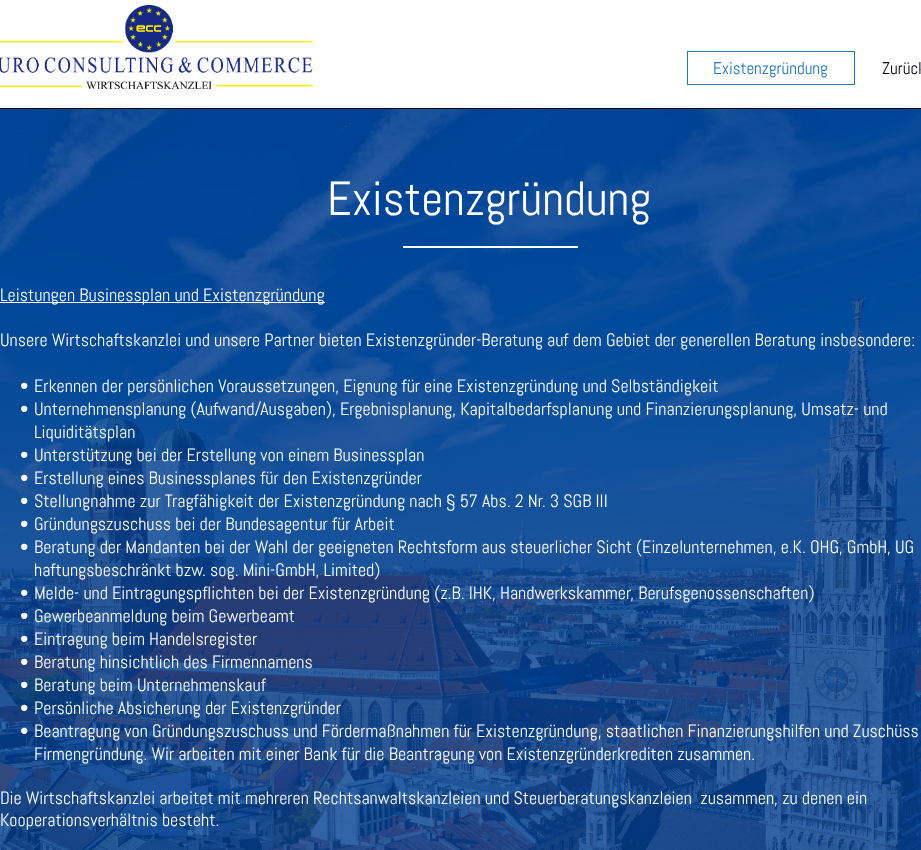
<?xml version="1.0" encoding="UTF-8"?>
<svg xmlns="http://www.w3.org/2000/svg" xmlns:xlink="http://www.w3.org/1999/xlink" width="921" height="850">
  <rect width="100%" height="100%" fill="#ffffff" />
  <image x="0" y="5" width="313" height="84" xlink:href="image1.png" />
  <rect x="687.5" y="51.5" width="167" height="33" fill="none" stroke="#2378bc" />
  <rect y="108" width="921" height="1" fill="#00010c" />
  <rect y="109" width="921" height="741" fill="#004093" />
  <image x="0" y="109" width="921" height="741" xlink:href="image2.png" />
  <rect x="403" y="246" width="175" height="2" fill="#ffffff" />
  <rect y="302" width="325" height="1" fill="#ffffff" />
  <text x="713" y="74" style="font-family: Abel; font-size: 17px; fill: #2377bc">Existenzgründung</text>
  <text x="882" y="74" style="font-family: Abel; font-size: 17px; fill: #00010d">Zurück</text>
  <text x="327" y="215" style="font-family: Abel; font-size: 48px; fill: #ffffff">Existenzgründung</text>
  <text x="0" y="301" style="font-family: Abel; font-size: 18px; fill: #ffffff">Leistungen Businessplan und Existenzgründung</text>
  <text x="0" y="346" style="font-family: Abel; font-size: 18px; fill: #ffffff">Unsere Wirtschaftskanzlei und unsere Partner bieten Existenzgründer-Beratung auf dem Gebiet der generellen Beratung insbesondere:</text>
  <text x="20" y="392" style="font-family: Abel; font-size: 18px; fill: #ffffff">•</text>
  <text x="34" y="392" style="font-family: Abel; font-size: 18px; fill: #ffffff">Erkennen der persönlichen Voraussetzungen, Eignung für eine Existenzgründung und Selbständigkeit</text>
  <text x="20" y="415" style="font-family: Abel; font-size: 18px; fill: #ffffff">•</text>
  <text x="34" y="415" style="font-family: Abel; font-size: 18px; fill: #ffffff">Unternehmensplanung (Aufwand/Ausgaben), Ergebnisplanung, Kapitalbedarfsplanung und Finanzierungsplanung, Umsatz- und</text>
  <text x="34" y="438" style="font-family: Abel; font-size: 18px; fill: #ffffff">Liquiditätsplan</text>
  <text x="20" y="461" style="font-family: Abel; font-size: 18px; fill: #ffffff">•</text>
  <text x="34" y="461" style="font-family: Abel; font-size: 18px; fill: #ffffff">Unterstützung bei der Erstellung von einem Businessplan</text>
  <text x="20" y="484" style="font-family: Abel; font-size: 18px; fill: #ffffff">•</text>
  <text x="34" y="484" style="font-family: Abel; font-size: 18px; fill: #ffffff">Erstellung eines Businessplanes für den Existenzgründer</text>
  <text x="20" y="507" style="font-family: Abel; font-size: 18px; fill: #ffffff">•</text>
  <text x="34" y="507" style="font-family: Abel; font-size: 18px; fill: #ffffff">Stellungnahme zur Tragfähigkeit der Existenzgründung nach § 57 Abs. 2 Nr. 3 SGB III</text>
  <text x="20" y="530" style="font-family: Abel; font-size: 18px; fill: #ffffff">•</text>
  <text x="34" y="530" style="font-family: Abel; font-size: 18px; fill: #ffffff">Gründungszuschuss bei der Bundesagentur für Arbeit</text>
  <text x="20" y="553" style="font-family: Abel; font-size: 18px; fill: #ffffff">•</text>
  <text x="34" y="553" style="font-family: Abel; font-size: 18px; fill: #ffffff">Beratung der Mandanten bei der Wahl der geeigneten Rechtsform aus steuerlicher Sicht (Einzelunternehmen, e.K. OHG, GmbH, UG</text>
  <text x="34" y="576" style="font-family: Abel; font-size: 18px; fill: #ffffff">haftungsbeschränkt bzw. sog. Mini-GmbH, Limited)</text>
  <text x="20" y="599" style="font-family: Abel; font-size: 18px; fill: #ffffff">•</text>
  <text x="34" y="599" style="font-family: Abel; font-size: 18px; fill: #ffffff">Melde- und Eintragungspflichten bei der Existenzgründung (z.B. IHK, Handwerkskammer, Berufsgenossenschaften)</text>
  <text x="20" y="622" style="font-family: Abel; font-size: 18px; fill: #ffffff">•</text>
  <text x="34" y="622" style="font-family: Abel; font-size: 18px; fill: #ffffff">Gewerbeanmeldung beim Gewerbeamt</text>
  <text x="20" y="645" style="font-family: Abel; font-size: 18px; fill: #ffffff">•</text>
  <text x="34" y="645" style="font-family: Abel; font-size: 18px; fill: #ffffff">Eintragung beim Handelsregister</text>
  <text x="20" y="668" style="font-family: Abel; font-size: 18px; fill: #ffffff">•</text>
  <text x="34" y="668" style="font-family: Abel; font-size: 18px; fill: #ffffff">Beratung hinsichtlich des Firmennamens</text>
  <text x="20" y="691" style="font-family: Abel; font-size: 18px; fill: #ffffff">•</text>
  <text x="34" y="691" style="font-family: Abel; font-size: 18px; fill: #ffffff">Beratung beim Unternehmenskauf</text>
  <text x="20" y="714" style="font-family: Abel; font-size: 18px; fill: #ffffff">•</text>
  <text x="34" y="714" style="font-family: Abel; font-size: 18px; fill: #ffffff">Persönliche Absicherung der Existenzgründer</text>
  <text x="20" y="737" style="font-family: Abel; font-size: 18px; fill: #ffffff">•</text>
  <text x="34" y="737" style="font-family: Abel; font-size: 18px; fill: #ffffff">Beantragung von Gründungszuschuss und Fördermaßnahmen für Existenzgründung, staatlichen Finanzierungshilfen und Zuschüss</text>
  <text x="34" y="760" style="font-family: Abel; font-size: 18px; fill: #ffffff">Firmengründung. Wir arbeiten mit einer Bank für die Beantragung von Existenzgründerkrediten zusammen.</text>
  <text x="0" y="804" style="font-family: Abel; font-size: 18px; fill: #ffffff" xml:space="preserve">Die Wirtschaftskanzlei arbeitet mit mehreren Rechtsanwaltskanzleien und Steuerberatungskanzleien  zusammen, zu denen ein</text>
  <text x="0" y="826" style="font-family: Abel; font-size: 18px; fill: #ffffff">Kooperationsverhältnis besteht.</text>
</svg>
